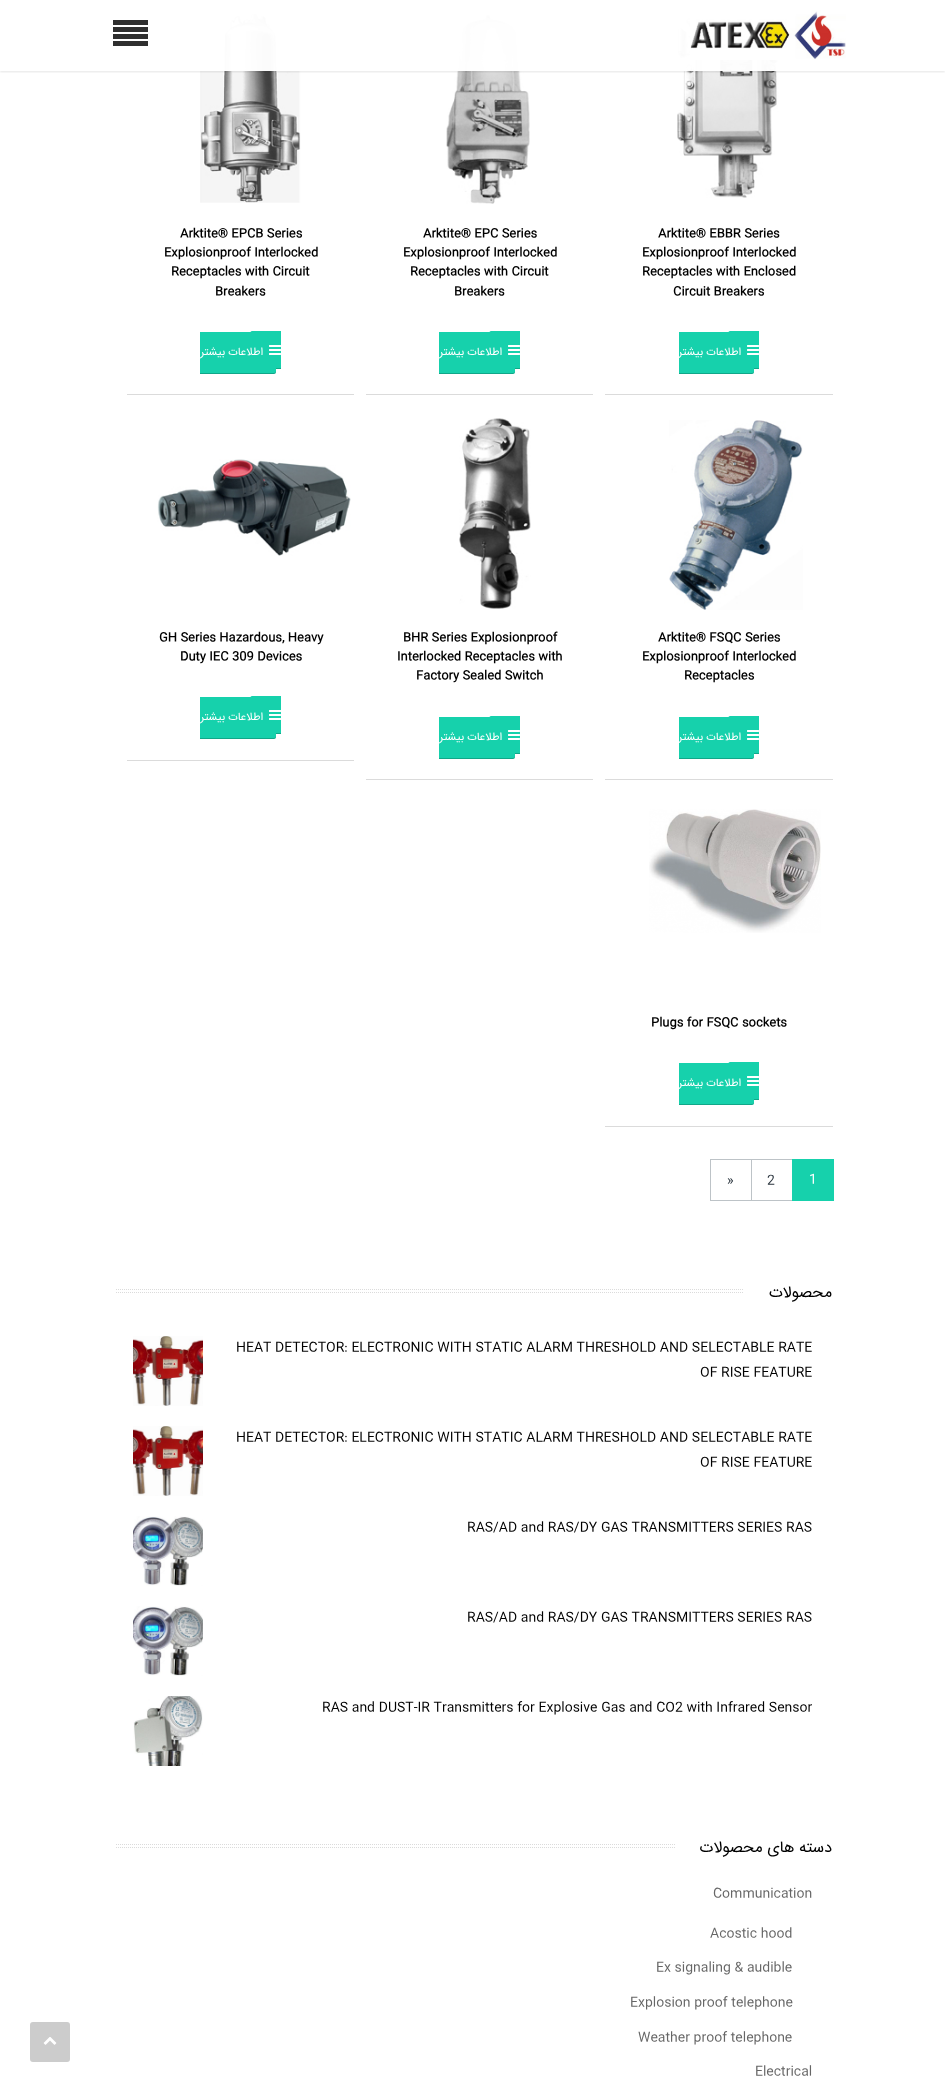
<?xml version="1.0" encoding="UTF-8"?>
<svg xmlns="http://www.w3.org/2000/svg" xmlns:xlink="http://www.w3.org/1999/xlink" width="945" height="2092">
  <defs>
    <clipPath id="clip1"><rect x="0" y="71" width="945" height="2" /></clipPath>
  </defs>
  <rect width="100%" height="100%" fill="#ffffff" />
  <rect x="30" y="2022" width="40" height="40" rx="3" fill="#cccccc" />
  <image x="43" y="2037" width="14" height="8" xlink:href="image1.png" />
  <image x="200" y="13" width="101" height="190" xlink:href="image3.png" />
  <image x="446" y="14" width="84" height="190" xlink:href="image5.png" />
  <image x="677" y="16" width="109" height="182" xlink:href="image6.png" />
  <g clip-path="url(#clip1)">
    <rect y="1" width="945" height="71" fill="#000000" fill-opacity="0.1" filter="blur(1px)" />
  </g>
  <rect x="200" y="13" width="586" height="58" fill="#ffffff" fill-opacity="0.98" />
  <rect x="113" y="20" width="35" height="5" fill="#2f2f2f" />
  <rect x="113" y="27" width="35" height="5" fill="#2f2f2f" />
  <rect x="113" y="34" width="35" height="5" fill="#2f2f2f" />
  <rect x="113" y="41" width="35" height="5" fill="#2f2f2f" />
  <image x="690" y="10" width="156" height="50" xlink:href="image2.png" />
  <rect x="127" y="394" width="227" height="1" fill="#dbdbdb" />
  <path d="M 252 331 h 29 v 38 h -29 c -1 0 -2 -1 -2 -2 v -34 c 0 -1 1 -2 2 -2 z" fill="#16d1ac" />
  <path d="M 250 366 v 1 c 0 1 1 2 2 2 h 29 v -1 h -30 z" fill="#000000" fill-opacity="0.2" />
  <path d="M 200 332 h 74 c 1 0 2 1 2 2 v 38 c 0 1 -1 2 -2 2 h -74 z" fill="#16d1ac" />
  <path d="M 200 373 v 1 h 74 c 1 0 2 -1 2 -2 v -1 c 0 1 -1 2 -2 2 z" fill="#000000" fill-opacity="0.2" />
  <image x="269" y="345" width="12" height="10" xlink:href="image4.png" />
  <rect x="366" y="394" width="227" height="1" fill="#dbdbdb" />
  <path d="M 491 331 h 29 v 38 h -29 c -1 0 -2 -1 -2 -2 v -34 c 0 -1 1 -2 2 -2 z" fill="#16d1ac" />
  <path d="M 489 366 v 1 c 0 1 1 2 2 2 h 29 v -1 h -30 z" fill="#000000" fill-opacity="0.2" />
  <path d="M 439 332 h 74 c 1 0 2 1 2 2 v 38 c 0 1 -1 2 -2 2 h -74 z" fill="#16d1ac" />
  <path d="M 439 373 v 1 h 74 c 1 0 2 -1 2 -2 v -1 c 0 1 -1 2 -2 2 z" fill="#000000" fill-opacity="0.2" />
  <image x="508" y="345" width="12" height="10" xlink:href="image4.png" />
  <rect x="605" y="394" width="228" height="1" fill="#dbdbdb" />
  <path d="M 730 331 h 29 v 38 h -29 c -1 0 -2 -1 -2 -2 v -34 c 0 -1 1 -2 2 -2 z" fill="#16d1ac" />
  <path d="M 728 366 v 1 c 0 1 1 2 2 2 h 29 v -1 h -30 z" fill="#000000" fill-opacity="0.2" />
  <path d="M 679 332 h 73 c 1 0 2 1 2 2 v 38 c 0 1 -1 2 -2 2 h -73 z" fill="#16d1ac" />
  <path d="M 679 373 v 1 h 73 c 1 0 2 -1 2 -2 v -1 c 0 1 -1 2 -2 2 z" fill="#000000" fill-opacity="0.2" />
  <image x="747" y="345" width="12" height="10" xlink:href="image4.png" />
  <image x="157" y="459" width="194" height="97" xlink:href="image7.png" />
  <rect x="127" y="760" width="227" height="1" fill="#dbdbdb" />
  <path d="M 252 696 h 29 v 38 h -29 c -1 0 -2 -1 -2 -2 v -34 c 0 -1 1 -2 2 -2 z" fill="#16d1ac" />
  <path d="M 250 731 v 1 c 0 1 1 2 2 2 h 29 v -1 h -30 z" fill="#000000" fill-opacity="0.2" />
  <path d="M 200 697 h 74 c 1 0 2 1 2 2 v 38 c 0 1 -1 2 -2 2 h -74 z" fill="#16d1ac" />
  <path d="M 200 738 v 1 h 74 c 1 0 2 -1 2 -2 v -1 c 0 1 -1 2 -2 2 z" fill="#000000" fill-opacity="0.2" />
  <image x="269" y="710" width="12" height="10" xlink:href="image4.png" />
  <image x="459" y="418" width="72" height="191" xlink:href="image8.png" />
  <rect x="366" y="779" width="227" height="1" fill="#dbdbdb" />
  <path d="M 491 716 h 29 v 38 h -29 c -1 0 -2 -1 -2 -2 v -34 c 0 -1 1 -2 2 -2 z" fill="#16d1ac" />
  <path d="M 489 751 v 1 c 0 1 1 2 2 2 h 29 v -1 h -30 z" fill="#000000" fill-opacity="0.2" />
  <path d="M 439 717 h 74 c 1 0 2 1 2 2 v 38 c 0 1 -1 2 -2 2 h -74 z" fill="#16d1ac" />
  <path d="M 439 758 v 1 h 74 c 1 0 2 -1 2 -2 v -1 c 0 1 -1 2 -2 2 z" fill="#000000" fill-opacity="0.2" />
  <image x="508" y="730" width="12" height="10" xlink:href="image4.png" />
  <image x="669" y="420" width="134" height="190" xlink:href="image9.png" />
  <rect x="605" y="779" width="228" height="1" fill="#dbdbdb" />
  <path d="M 730 716 h 29 v 38 h -29 c -1 0 -2 -1 -2 -2 v -34 c 0 -1 1 -2 2 -2 z" fill="#16d1ac" />
  <path d="M 728 751 v 1 c 0 1 1 2 2 2 h 29 v -1 h -30 z" fill="#000000" fill-opacity="0.2" />
  <path d="M 679 717 h 73 c 1 0 2 1 2 2 v 38 c 0 1 -1 2 -2 2 h -73 z" fill="#16d1ac" />
  <path d="M 679 758 v 1 h 73 c 1 0 2 -1 2 -2 v -1 c 0 1 -1 2 -2 2 z" fill="#000000" fill-opacity="0.2" />
  <image x="747" y="730" width="12" height="10" xlink:href="image4.png" />
  <image x="649" y="809" width="172" height="124" xlink:href="image10.png" />
  <rect x="605" y="1126" width="228" height="1" fill="#dbdbdb" />
  <path d="M 730 1062 h 29 v 38 h -29 c -1 0 -2 -1 -2 -2 v -34 c 0 -1 1 -2 2 -2 z" fill="#16d1ac" />
  <path d="M 728 1097 v 1 c 0 1 1 2 2 2 h 29 v -1 h -30 z" fill="#000000" fill-opacity="0.2" />
  <path d="M 679 1063 h 73 c 1 0 2 1 2 2 v 38 c 0 1 -1 2 -2 2 h -73 z" fill="#16d1ac" />
  <path d="M 679 1104 v 1 h 73 c 1 0 2 -1 2 -2 v -1 c 0 1 -1 2 -2 2 z" fill="#000000" fill-opacity="0.2" />
  <image x="747" y="1076" width="12" height="10" xlink:href="image4.png" />
  <rect x="710" y="1159" width="82" height="1" fill="#bdc3c7" />
  <rect x="710" y="1200" width="82" height="1" fill="#bdc3c7" />
  <rect x="710" y="1159" width="1" height="42" fill="#bdc3c7" />
  <rect x="751" y="1159" width="1" height="42" fill="#bdc3c7" />
  <rect x="792" y="1159" width="42" height="42" fill="#16d1ac" />
  <path d="M 116 1289.5 h 628" fill="none" stroke="#dbdbdb" stroke-dasharray="1 1" />
  <path d="M 116 1292.5 h 628" fill="none" stroke="#dbdbdb" stroke-dasharray="1 1" />
  <image x="133" y="1336" width="70" height="70" xlink:href="image11.png" />
  <image x="133" y="1426" width="70" height="70" xlink:href="image12.png" />
  <image x="133" y="1516" width="70" height="70" xlink:href="image13.png" />
  <image x="133" y="1606" width="70" height="70" xlink:href="image13.png" />
  <image x="133" y="1696" width="70" height="70" xlink:href="image14.png" />
  <path d="M 116 1844.5 h 559" fill="none" stroke="#dbdbdb" stroke-dasharray="1 1" />
  <path d="M 116 1847.5 h 559" fill="none" stroke="#dbdbdb" stroke-dasharray="1 1" />
  <text x="180" y="237" style="font-family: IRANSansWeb; font-size: 12px; font-weight: bold; fill: #000000">Arktite® EPCB Series</text>
  <text x="164" y="256" style="font-family: IRANSansWeb; font-size: 12px; font-weight: bold; fill: #000000">Explosionproof Interlocked</text>
  <text x="171" y="275" style="font-family: IRANSansWeb; font-size: 12px; font-weight: bold; fill: #000000">Receptacles with Circuit</text>
  <text x="215" y="295" style="font-family: IRANSansWeb; font-size: 12px; font-weight: bold; fill: #000000">Breakers</text>
  <text x="263" y="355" style="font-family: IRANSansWeb; font-size: 11px; direction: rtl; fill: #ffffff">اطلاعات بیشتر</text>
  <text x="423" y="237" style="font-family: IRANSansWeb; font-size: 12px; font-weight: bold; fill: #000000">Arktite® EPC Series</text>
  <text x="403" y="256" style="font-family: IRANSansWeb; font-size: 12px; font-weight: bold; fill: #000000">Explosionproof Interlocked</text>
  <text x="410" y="275" style="font-family: IRANSansWeb; font-size: 12px; font-weight: bold; fill: #000000">Receptacles with Circuit</text>
  <text x="454" y="295" style="font-family: IRANSansWeb; font-size: 12px; font-weight: bold; fill: #000000">Breakers</text>
  <text x="502" y="355" style="font-family: IRANSansWeb; font-size: 11px; direction: rtl; fill: #ffffff">اطلاعات بیشتر</text>
  <text x="658" y="237" style="font-family: IRANSansWeb; font-size: 12px; font-weight: bold; fill: #000000">Arktite® EBBR Series</text>
  <text x="642" y="256" style="font-family: IRANSansWeb; font-size: 12px; font-weight: bold; fill: #000000">Explosionproof Interlocked</text>
  <text x="642" y="275" style="font-family: IRANSansWeb; font-size: 12px; font-weight: bold; fill: #000000">Receptacles with Enclosed</text>
  <text x="673" y="295" style="font-family: IRANSansWeb; font-size: 12px; font-weight: bold; fill: #000000">Circuit Breakers</text>
  <text x="741" y="355" style="font-family: IRANSansWeb; font-size: 11px; direction: rtl; fill: #ffffff">اطلاعات بیشتر</text>
  <text x="159" y="641" style="font-family: IRANSansWeb; font-size: 12px; font-weight: bold; fill: #000000">GH Series Hazardous, Heavy</text>
  <text x="180" y="660" style="font-family: IRANSansWeb; font-size: 12px; font-weight: bold; fill: #000000">Duty IEC 309 Devices</text>
  <text x="263" y="720" style="font-family: IRANSansWeb; font-size: 11px; direction: rtl; fill: #ffffff">اطلاعات بیشتر</text>
  <text x="403" y="641" style="font-family: IRANSansWeb; font-size: 12px; font-weight: bold; fill: #000000">BHR Series Explosionproof</text>
  <text x="397" y="660" style="font-family: IRANSansWeb; font-size: 12px; font-weight: bold; fill: #000000">Interlocked Receptacles with</text>
  <text x="416" y="679" style="font-family: IRANSansWeb; font-size: 12px; font-weight: bold; fill: #000000">Factory Sealed Switch</text>
  <text x="502" y="740" style="font-family: IRANSansWeb; font-size: 11px; direction: rtl; fill: #ffffff">اطلاعات بیشتر</text>
  <text x="658" y="641" style="font-family: IRANSansWeb; font-size: 12px; font-weight: bold; fill: #000000">Arktite® FSQC Series</text>
  <text x="642" y="660" style="font-family: IRANSansWeb; font-size: 12px; font-weight: bold; fill: #000000">Explosionproof Interlocked</text>
  <text x="684" y="679" style="font-family: IRANSansWeb; font-size: 12px; font-weight: bold; fill: #000000">Receptacles</text>
  <text x="741" y="740" style="font-family: IRANSansWeb; font-size: 11px; direction: rtl; fill: #ffffff">اطلاعات بیشتر</text>
  <text x="651" y="1026" style="font-family: IRANSansWeb; font-size: 12px; font-weight: bold; fill: #000000">Plugs for FSQC sockets</text>
  <text x="741" y="1086" style="font-family: IRANSansWeb; font-size: 11px; direction: rtl; fill: #ffffff">اطلاعات بیشتر</text>
  <text x="727" y="1184" style="font-family: IRANSansWeb; font-size: 13px; fill: #2b353e">»</text>
  <text x="767" y="1184" style="font-family: IRANSansWeb; font-size: 13px; fill: #2b353e">2</text>
  <text x="809" y="1183" style="font-family: IRANSansWeb; font-size: 13px; fill: #ffffff">1</text>
  <text x="832" y="1297" style="font-family: IRANSansWeb; font-size: 16px; direction: rtl; fill: #000000">محصولات</text>
  <text x="236" y="1351" style="font-family: IRANSansWeb; font-size: 13px; fill: #000000">HEAT DETECTOR: ELECTRONIC WITH STATIC ALARM THRESHOLD AND SELECTABLE RATE</text>
  <text x="700" y="1376" style="font-family: IRANSansWeb; font-size: 13px; fill: #000000">OF RISE FEATURE</text>
  <text x="236" y="1441" style="font-family: IRANSansWeb; font-size: 13px; fill: #000000">HEAT DETECTOR: ELECTRONIC WITH STATIC ALARM THRESHOLD AND SELECTABLE RATE</text>
  <text x="700" y="1466" style="font-family: IRANSansWeb; font-size: 13px; fill: #000000">OF RISE FEATURE</text>
  <text x="467" y="1531" style="font-family: IRANSansWeb; font-size: 13px; fill: #000000">RAS/AD and RAS/DY GAS TRANSMITTERS SERIES RAS</text>
  <text x="467" y="1621" style="font-family: IRANSansWeb; font-size: 13px; fill: #000000">RAS/AD and RAS/DY GAS TRANSMITTERS SERIES RAS</text>
  <text x="322" y="1711" style="font-family: IRANSansWeb; font-size: 13px; fill: #000000">RAS and DUST-IR Transmitters for Explosive Gas and CO2 with Infrared Sensor</text>
  <text x="832" y="1852" style="font-family: IRANSansWeb; font-size: 16px; direction: rtl; fill: #000000">دسته های محصولات</text>
  <text x="713" y="1897" style="font-family: IRANSansWeb; font-size: 13px; fill: #666666">Communication</text>
  <text x="710" y="1937" style="font-family: IRANSansWeb; font-size: 13px; fill: #666666">Acostic hood</text>
  <text x="656" y="1971" style="font-family: IRANSansWeb; font-size: 13px; fill: #666666">Ex signaling &amp; audible</text>
  <text x="630" y="2006" style="font-family: IRANSansWeb; font-size: 13px; fill: #666666">Explosion proof telephone</text>
  <text x="638" y="2041" style="font-family: IRANSansWeb; font-size: 13px; fill: #666666">Weather proof telephone</text>
  <text x="755" y="2075" style="font-family: IRANSansWeb; font-size: 13px; fill: #666666">Electrical</text>
</svg>
